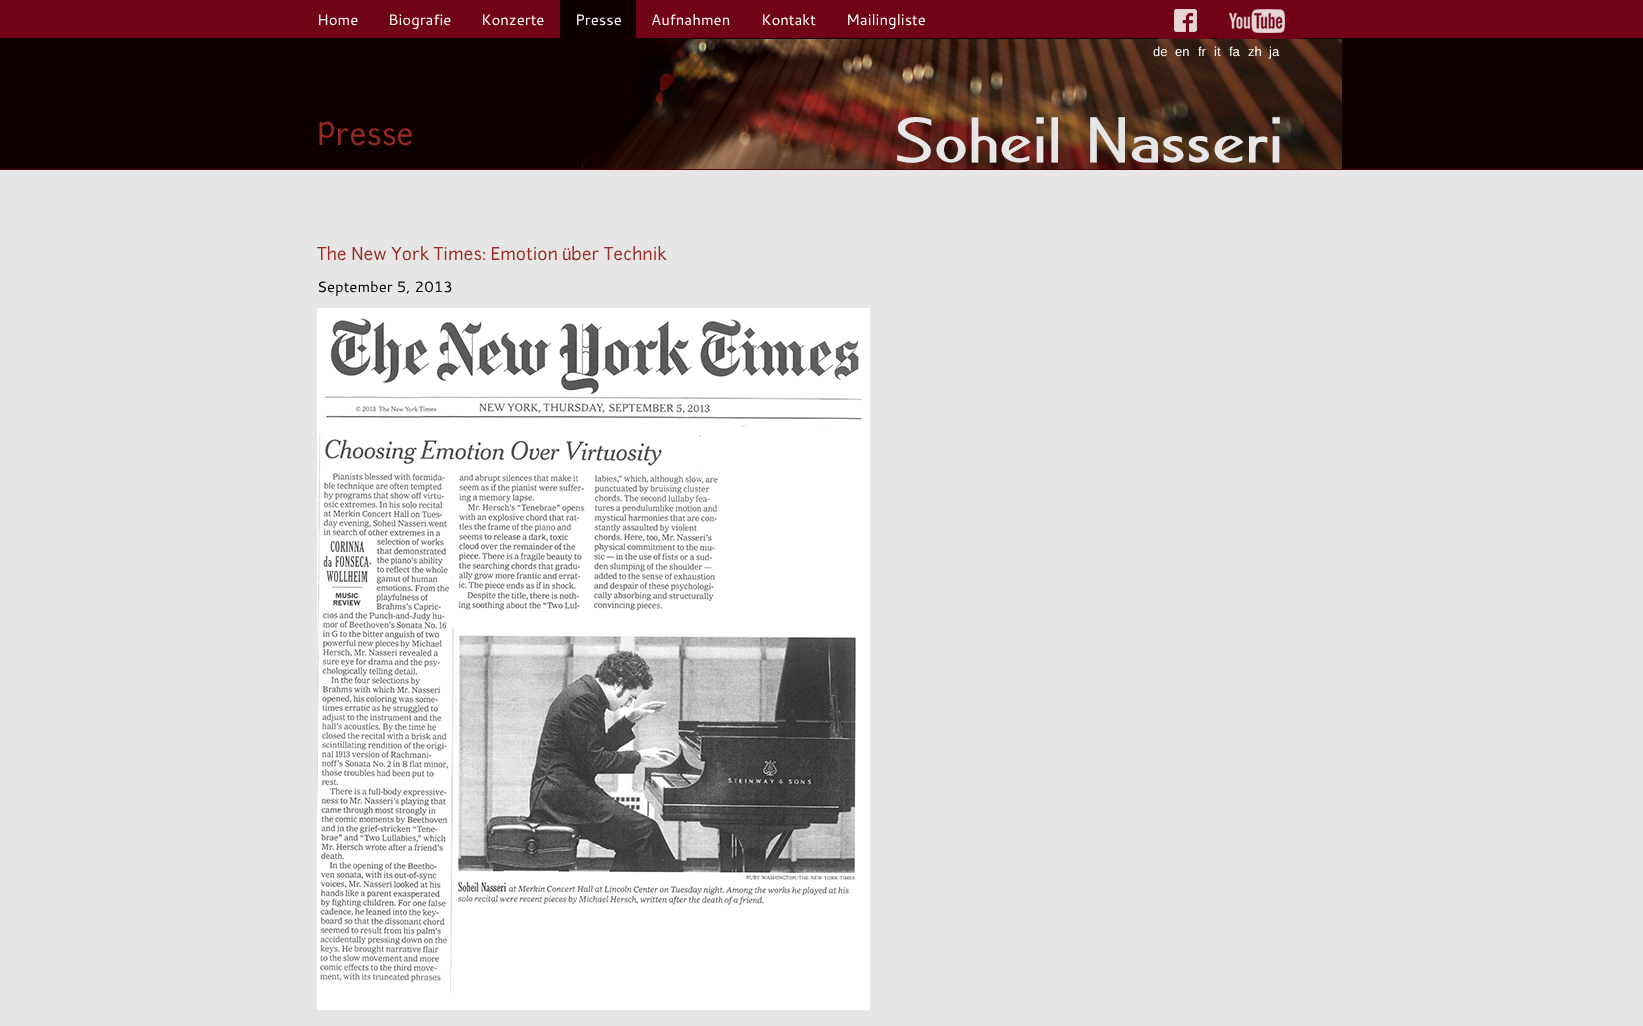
<?xml version="1.0" encoding="UTF-8"?>
<svg xmlns="http://www.w3.org/2000/svg" xmlns:xlink="http://www.w3.org/1999/xlink" width="1643" height="1026">
  <rect width="100%" height="100%" fill="#e7e6e6" />
  <rect width="1643" height="38" fill="#710316" />
  <rect y="38" width="1643" height="131" fill="#0f0000" />
  <rect y="169" width="1643" height="1" fill="#510210" />
  <rect x="560" width="76" height="38" fill="#0f0000" />
  <image x="1159" y="9" width="53" height="30" xlink:href="image1.png" />
  <image x="1217" y="9" width="82" height="30" xlink:href="image2.png" />
  <image x="581" y="39" width="761" height="130" xlink:href="image3.png" />
  <image x="317" y="308" width="553" height="702" xlink:href="image4.png" />
  <text x="317" y="25" style="font-family: cantarell; font-size: 15px; font-weight: 500; fill: #ffffff">Home</text>
  <text x="388" y="25" style="font-family: cantarell; font-size: 15px; font-weight: 500; fill: #ffffff">Biografie</text>
  <text x="481" y="25" style="font-family: cantarell; font-size: 15px; font-weight: 500; fill: #ffffff">Konzerte</text>
  <text x="575" y="25" style="font-family: cantarell; font-size: 15px; font-weight: 500; fill: #ffffff">Presse</text>
  <text x="651" y="25" style="font-family: cantarell; font-size: 15px; font-weight: 500; fill: #ffffff">Aufnahmen</text>
  <text x="761" y="25" style="font-family: cantarell; font-size: 15px; font-weight: 500; fill: #ffffff">Kontakt</text>
  <text x="846" y="25" style="font-family: cantarell; font-size: 15px; font-weight: 500; fill: #ffffff">Mailingliste</text>
  <text x="1153" y="56" style="font-family: Liberation Sans; font-size: 13px; fill: #ffffff">de</text>
  <text x="1175" y="56" style="font-family: Liberation Sans; font-size: 13px; fill: #ffffff">en</text>
  <text x="1198" y="56" style="font-family: Liberation Sans; font-size: 13px; fill: #ffffff">fr</text>
  <text x="1214" y="56" style="font-family: Liberation Sans; font-size: 13px; fill: #ffffff">it</text>
  <text x="1229" y="56" style="font-family: Liberation Sans; font-size: 13px; fill: #ffffff">fa</text>
  <text x="1248" y="56" style="font-family: Liberation Sans; font-size: 13px; fill: #ffffff">zh</text>
  <text x="1269" y="56" style="font-family: Liberation Sans; font-size: 13px; fill: #ffffff">ja</text>
  <text x="317" y="145" style="font-family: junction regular; font-size: 30px; fill: #9b2a22">Presse</text>
  <text x="317" y="260" style="font-family: junction regular; font-size: 17px; fill: #9b2a22">The New York Times: Emotion</text>
  <text x="562" y="260" style="font-family: Liberation Sans; font-size: 17px; fill: #9b2a22">ü</text>
  <text x="571" y="260" style="font-family: junction regular; font-size: 17px; fill: #9b2a22">ber Technik</text>
  <text x="317" y="292" style="font-family: cantarell; font-size: 15px; font-weight: 500; fill: #000000">September 5, 2013</text>
</svg>
